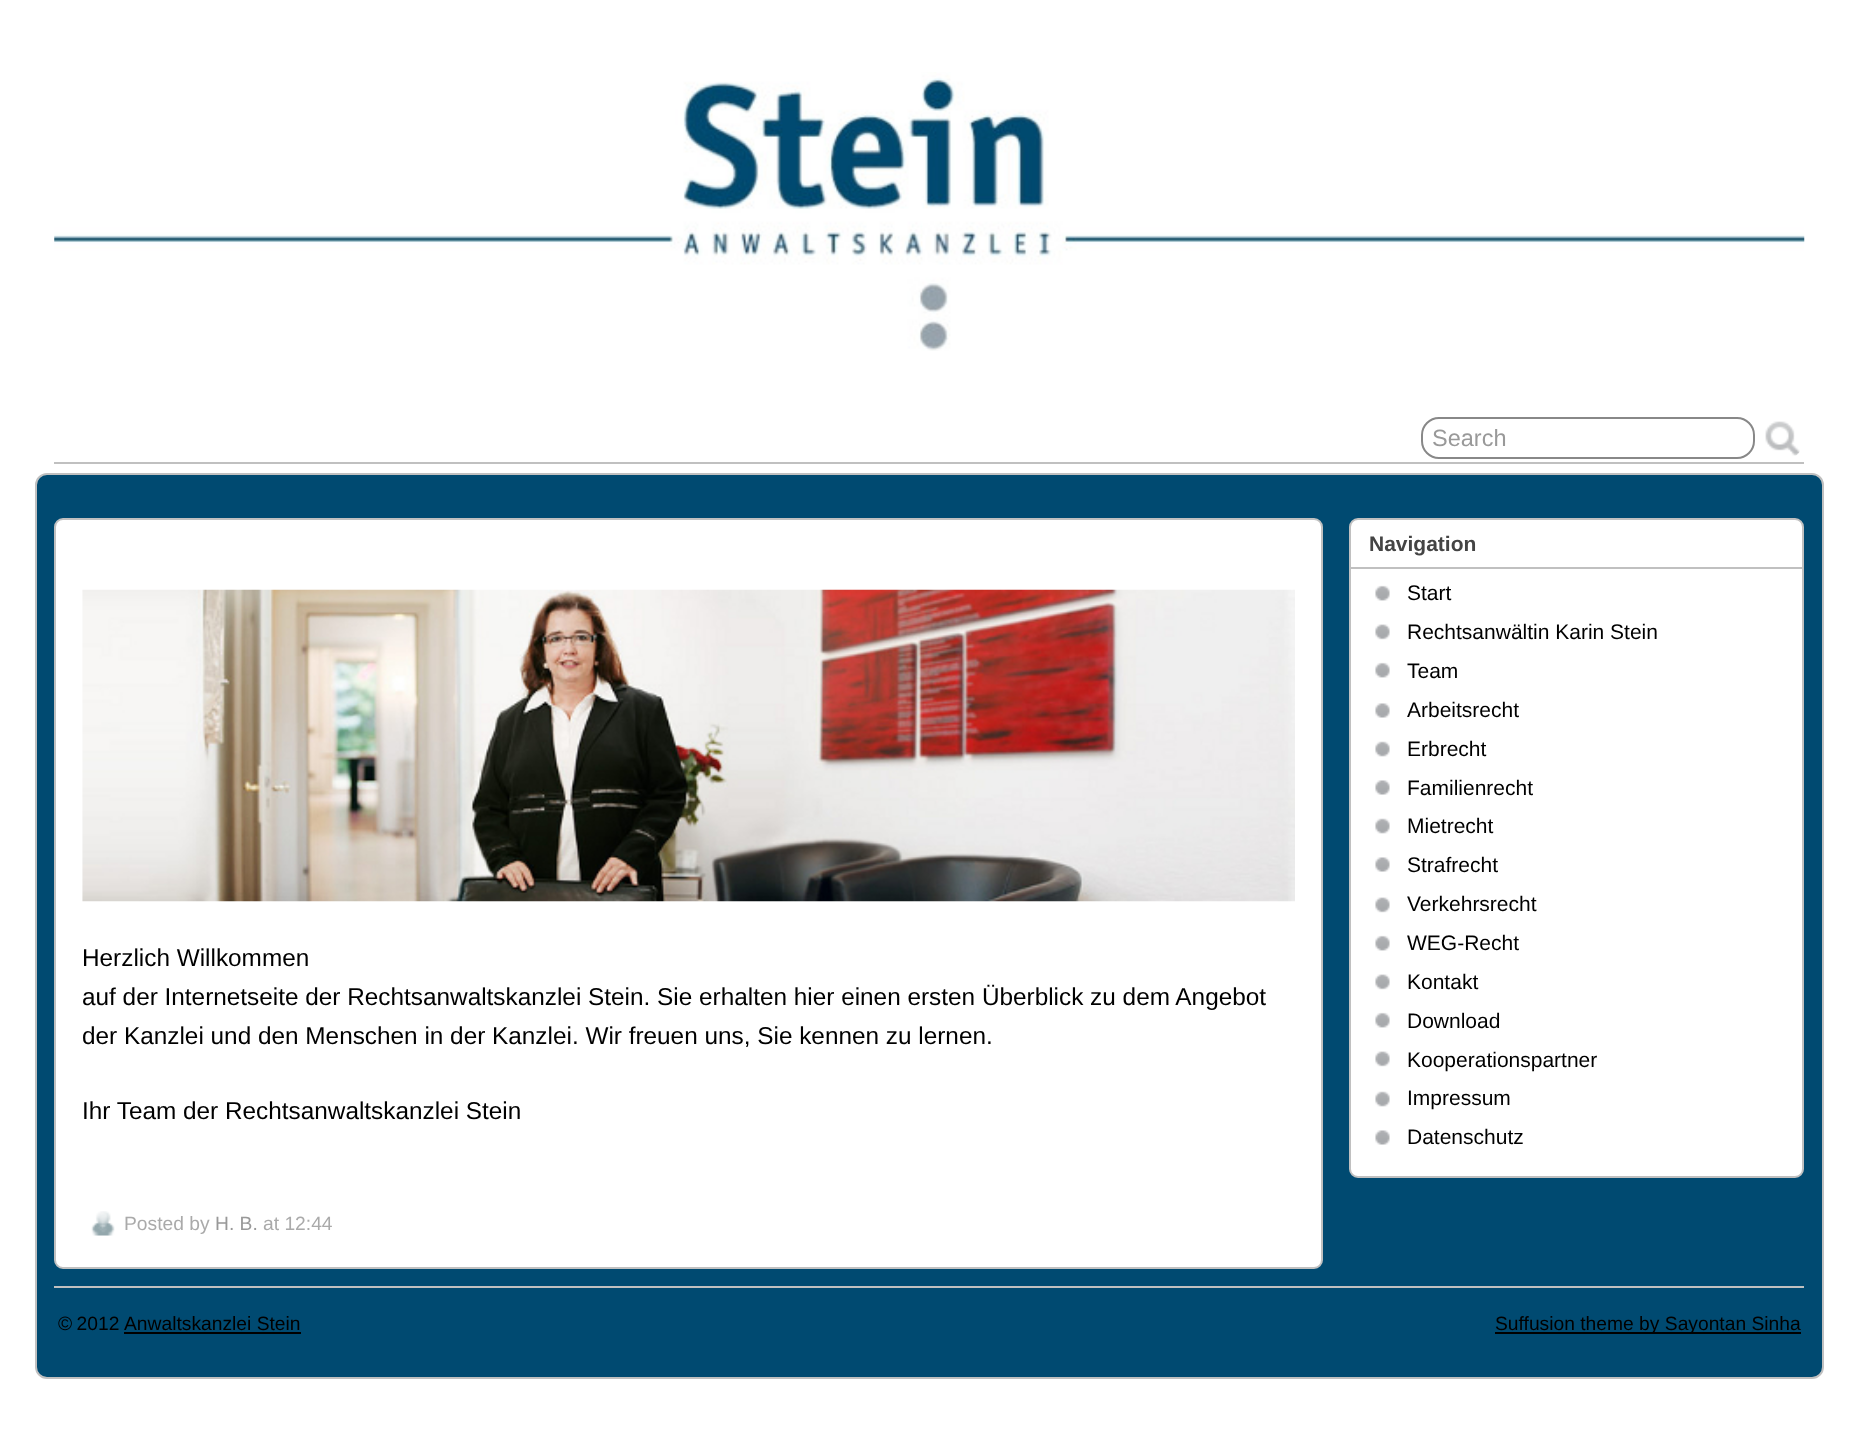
<?xml version="1.0" encoding="UTF-8"?>
<svg xmlns="http://www.w3.org/2000/svg" xmlns:xlink="http://www.w3.org/1999/xlink" width="1857" height="1435">
  <rect width="100%" height="100%" fill="#ffffff" />
  <image x="54" y="72" width="1751" height="279" xlink:href="image1.png" />
  <rect x="54" y="462" width="1750" height="2" fill="#c0c0c0" />
  <rect x="1422" y="418" width="332" height="40" rx="17" fill="none" stroke="#888888" stroke-width="2" />
  <image x="1765" y="421" width="35" height="35" xlink:href="image2.png" />
  <rect x="36" y="474" width="1787" height="904" rx="11" fill="#004a71" stroke="#c0c0c0" stroke-width="2" />
  <rect x="55" y="519" width="1267" height="749" rx="8" fill="#ffffff" stroke="#c0c0c0" stroke-width="2" />
  <image x="82" y="589" width="1213" height="313" xlink:href="image3.png" />
  <image x="91" y="1211" width="24" height="25" xlink:href="image4.png" />
  <rect x="1350" y="519" width="453" height="658" rx="8" fill="#ffffff" stroke="#c0c0c0" stroke-width="2" />
  <rect x="1351" y="567" width="452" height="2" fill="#c0c0c0" />
  <image x="1375" y="585" width="15" height="16" xlink:href="image5.png" />
  <image x="1375" y="624" width="15" height="16" xlink:href="image6.png" />
  <image x="1375" y="662" width="15" height="16" xlink:href="image5.png" />
  <image x="1375" y="703" width="15" height="15" xlink:href="image7.png" />
  <image x="1375" y="741" width="15" height="16" xlink:href="image8.png" />
  <image x="1375" y="780" width="15" height="15" xlink:href="image7.png" />
  <image x="1375" y="818" width="15" height="16" xlink:href="image8.png" />
  <image x="1375" y="857" width="15" height="15" xlink:href="image7.png" />
  <image x="1375" y="897" width="15" height="16" xlink:href="image6.png" />
  <image x="1375" y="935" width="15" height="16" xlink:href="image5.png" />
  <image x="1375" y="974" width="15" height="16" xlink:href="image6.png" />
  <image x="1375" y="1012" width="15" height="16" xlink:href="image5.png" />
  <image x="1375" y="1051" width="15" height="16" xlink:href="image6.png" />
  <image x="1375" y="1091" width="15" height="16" xlink:href="image8.png" />
  <image x="1375" y="1130" width="15" height="15" xlink:href="image7.png" />
  <rect x="54" y="1286" width="1750" height="2" fill="#c0c0c0" />
  <rect x="124" y="1332" width="177" height="2" fill="#000000" />
  <rect x="1495" y="1332" width="306" height="2" fill="#000000" />
  <text x="1432" y="446" style="font-family: Liberation Sans; font-size: 23.5px; fill: #999999">Search</text>
  <text x="82" y="966" style="font-family: Liberation Sans; font-size: 24.35px; fill: #000000">Herzlich Willkommen</text>
  <text x="82" y="1005" style="font-family: Liberation Sans; font-size: 24.35px; fill: #000000">auf der Internetseite der Rechtsanwaltskanzlei Stein. Sie erhalten hier einen ersten Überblick zu dem Angebot</text>
  <text x="82" y="1044" style="font-family: Liberation Sans; font-size: 24.35px; fill: #000000">der Kanzlei und den Menschen in der Kanzlei. Wir freuen uns, Sie kennen zu lernen.</text>
  <text x="82" y="1119" style="font-family: Liberation Sans; font-size: 24.35px; fill: #000000">Ihr Team der Rechtsanwaltskanzlei Stein</text>
  <text x="124" y="1230" style="font-family: Liberation Sans; font-size: 19.25px; fill: #aaaaaa">Posted by</text>
  <text x="215" y="1230" style="font-family: Liberation Sans; font-size: 19.25px; fill: #999999">H. B.</text>
  <text x="263" y="1230" style="font-family: Liberation Sans; font-size: 19.25px; fill: #aaaaaa">at 12:44</text>
  <text x="1369" y="551" style="font-family: Liberation Sans; font-size: 21px; font-weight: bold; fill: #444444">Navigation</text>
  <text x="1407" y="600" style="font-family: Liberation Sans; font-size: 21px; fill: #000000">Start</text>
  <text x="1407" y="639" style="font-family: Liberation Sans; font-size: 21px; fill: #000000">Rechtsanwältin Karin Stein</text>
  <text x="1407" y="678" style="font-family: Liberation Sans; font-size: 21px; fill: #000000">Team</text>
  <text x="1407" y="717" style="font-family: Liberation Sans; font-size: 21px; fill: #000000">Arbeitsrecht</text>
  <text x="1407" y="756" style="font-family: Liberation Sans; font-size: 21px; fill: #000000">Erbrecht</text>
  <text x="1407" y="795" style="font-family: Liberation Sans; font-size: 21px; fill: #000000">Familienrecht</text>
  <text x="1407" y="833" style="font-family: Liberation Sans; font-size: 21px; fill: #000000">Mietrecht</text>
  <text x="1407" y="872" style="font-family: Liberation Sans; font-size: 21px; fill: #000000">Strafrecht</text>
  <text x="1407" y="911" style="font-family: Liberation Sans; font-size: 21px; fill: #000000">Verkehrsrecht</text>
  <text x="1407" y="950" style="font-family: Liberation Sans; font-size: 21px; fill: #000000">WEG-Recht</text>
  <text x="1407" y="989" style="font-family: Liberation Sans; font-size: 21px; fill: #000000">Kontakt</text>
  <text x="1407" y="1028" style="font-family: Liberation Sans; font-size: 21px; fill: #000000">Download</text>
  <text x="1407" y="1067" style="font-family: Liberation Sans; font-size: 21px; fill: #000000">Kooperationspartner</text>
  <text x="1407" y="1105" style="font-family: Liberation Sans; font-size: 21px; fill: #000000">Impressum</text>
  <text x="1407" y="1144" style="font-family: Liberation Sans; font-size: 21px; fill: #000000">Datenschutz</text>
  <text x="58" y="1330" word-spacing="-1" style="font-family: Liberation Sans; font-size: 19.25px; fill: #000000">© 2012</text>
  <text x="124" y="1330" style="font-family: Liberation Sans; font-size: 19.25px; fill: #000000">Anwaltskanzlei Stein</text>
  <text x="1495" y="1330" style="font-family: Liberation Sans; font-size: 19.25px; fill: #000000">Suffusion theme by Sayontan Sinha</text>
</svg>
